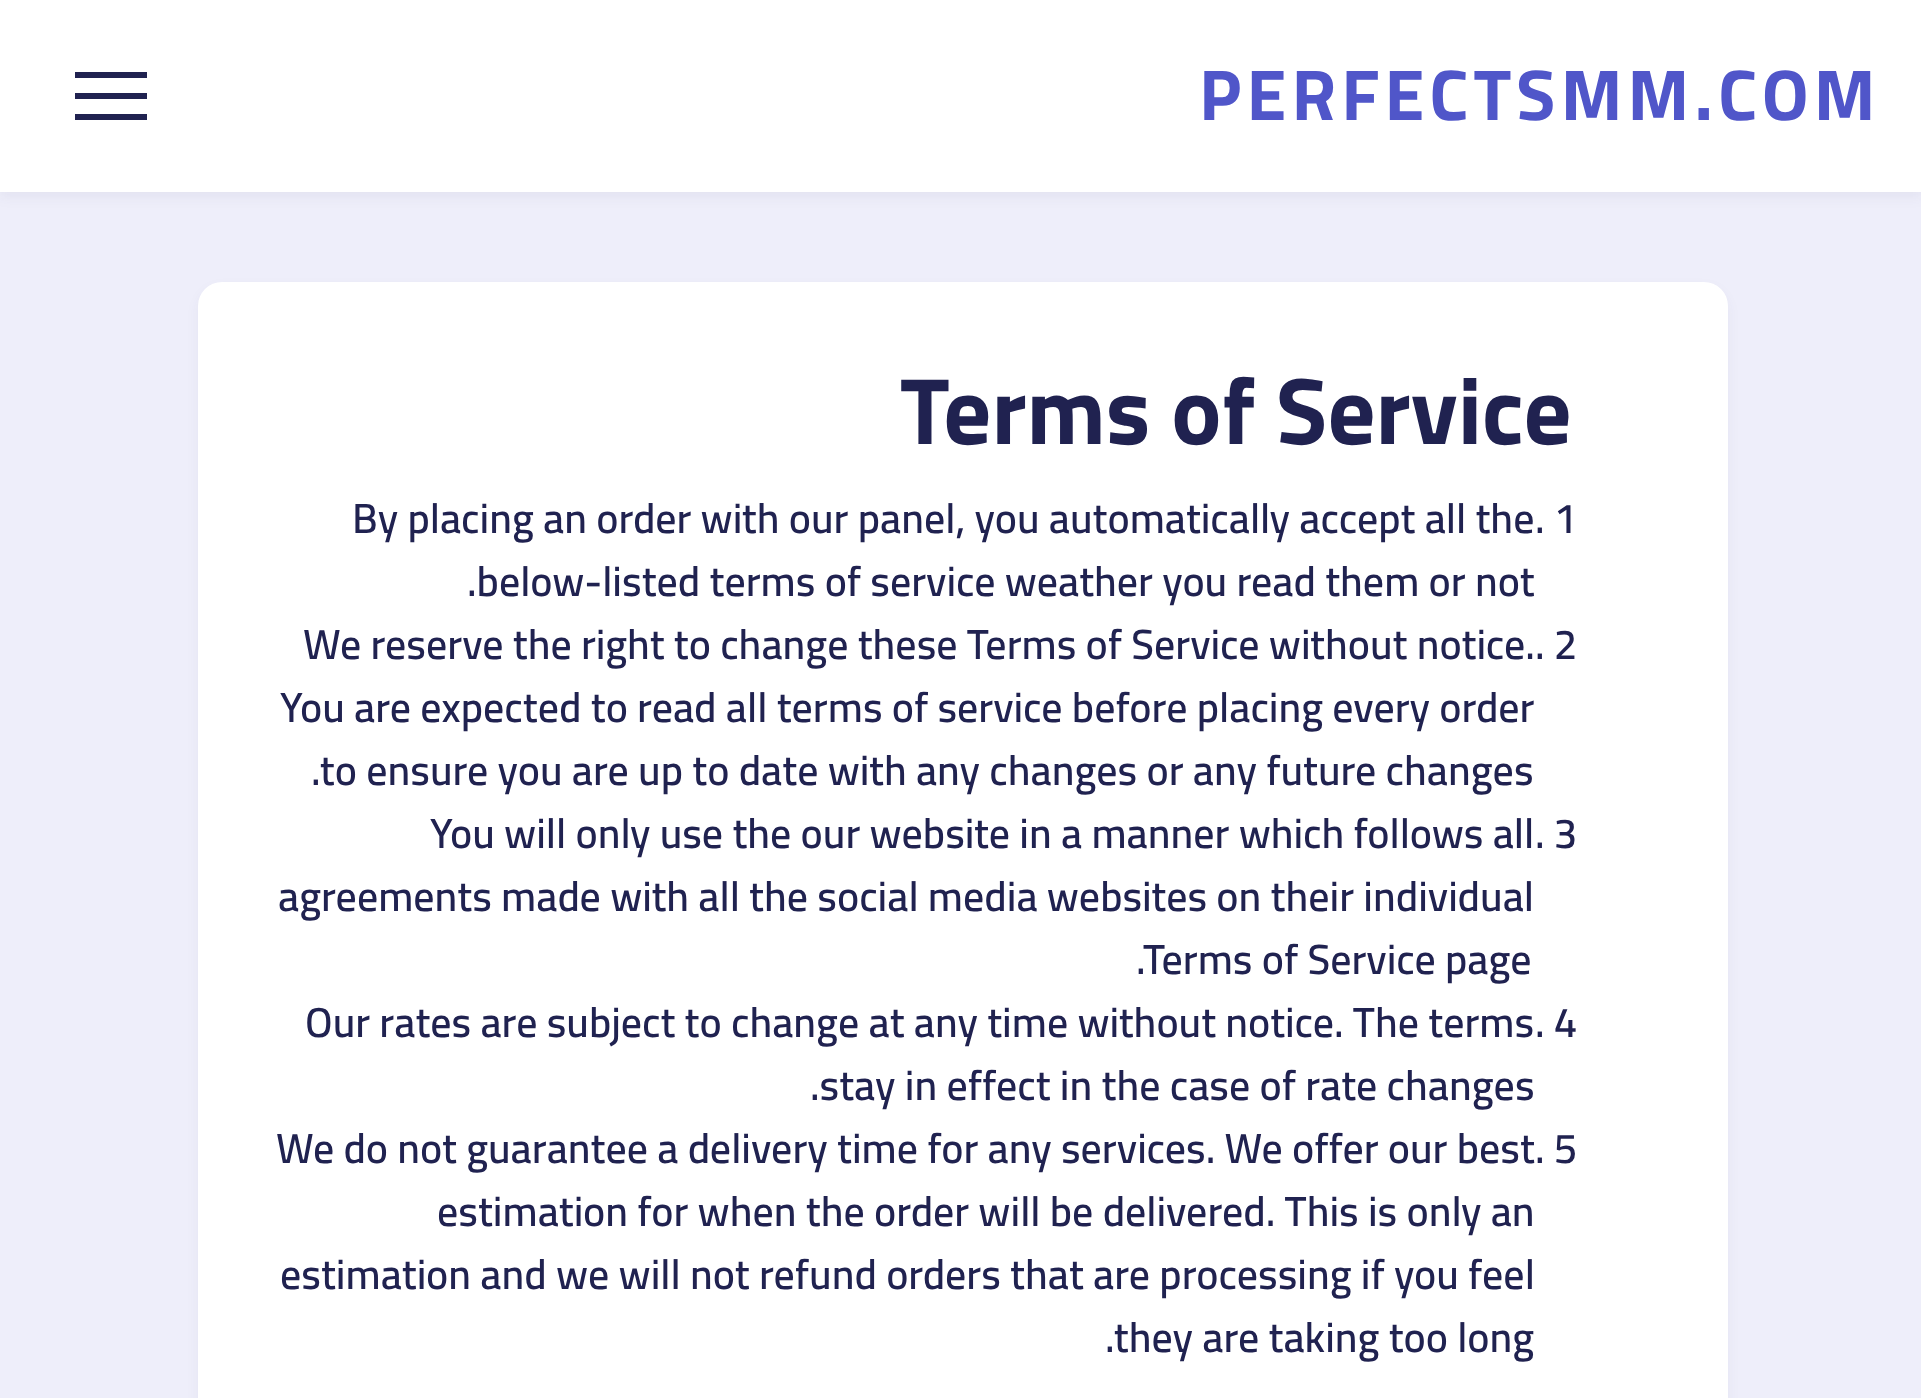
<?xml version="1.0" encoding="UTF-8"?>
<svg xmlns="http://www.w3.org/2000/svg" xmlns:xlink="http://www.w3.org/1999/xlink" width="1921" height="1398">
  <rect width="100%" height="100%" fill="#eeeefa" />
  <rect y="6" width="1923" height="192" fill="#202250" fill-opacity="0.05" filter="blur(6px)" />
  <rect width="1921" height="192" fill="#ffffff" />
  <rect x="75" y="93" width="72" height="6" fill="#202250" />
  <rect x="75" y="72" width="72" height="6" fill="#202250" />
  <rect x="75" y="114" width="72" height="6" fill="#202250" />
  <rect x="198" y="288" width="1530" height="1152" rx="24" fill="#202250" fill-opacity="0.05" filter="blur(6px)" />
  <rect x="198" y="282" width="1530" height="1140" rx="24" fill="#ffffff" />
  <text x="1199" y="120" style="font-family: Cairo; font-size: 72px; font-weight: bold; letter-spacing: 5.1px; fill: #5056c9">PERFECTSMM.COM</text>
  <text x="900" y="444" style="font-family: Cairo; font-size: 94.5px; font-weight: bold; fill: #202250">Terms of Service</text>
  <text x="352" y="533" style="font-family: Cairo; font-size: 42px; font-weight: 600; fill: #202250">By placing an order with our panel, you automatically accept all the</text>
  <text x="1535" y="533" style="font-family: Cairo; font-size: 42px; font-weight: 600; fill: #202250">. 1</text>
  <text x="467" y="596" style="font-family: Cairo; font-size: 42px; font-weight: 600; fill: #202250">.below-listed terms of service weather you read them or not</text>
  <text x="303" y="659" style="font-family: Cairo; font-size: 42px; font-weight: 600; fill: #202250">We reserve the right to change these Terms of Service without notice.</text>
  <text x="1535" y="659" style="font-family: Cairo; font-size: 42px; font-weight: 600; fill: #202250">. 2</text>
  <text x="280" y="722" style="font-family: Cairo; font-size: 42px; font-weight: 600; fill: #202250">You are expected to read all terms of service before placing every order</text>
  <text x="311" y="785" style="font-family: Cairo; font-size: 42px; font-weight: 600; fill: #202250">.to ensure you are up to date with any changes or any future changes</text>
  <text x="430" y="848" style="font-family: Cairo; font-size: 42px; font-weight: 600; fill: #202250">You will only use the our website in a manner which follows all</text>
  <text x="1535" y="848" style="font-family: Cairo; font-size: 42px; font-weight: 600; fill: #202250">. 3</text>
  <text x="278" y="911" style="font-family: Cairo; font-size: 42px; font-weight: 600; fill: #202250">agreements made with all the social media websites on their individual</text>
  <text x="1136" y="974" style="font-family: Cairo; font-size: 42px; font-weight: 600; fill: #202250">.Terms of Service page</text>
  <text x="305" y="1037" style="font-family: Cairo; font-size: 42px; font-weight: 600; fill: #202250">Our rates are subject to change at any time without notice. The terms</text>
  <text x="1535" y="1037" style="font-family: Cairo; font-size: 42px; font-weight: 600; fill: #202250">. 4</text>
  <text x="810" y="1100" style="font-family: Cairo; font-size: 42px; font-weight: 600; fill: #202250">.stay in effect in the case of rate changes</text>
  <text x="276" y="1163" style="font-family: Cairo; font-size: 42px; font-weight: 600; fill: #202250">We do not guarantee a delivery time for any services. We offer our best</text>
  <text x="1535" y="1163" style="font-family: Cairo; font-size: 42px; font-weight: 600; fill: #202250">. 5</text>
  <text x="437" y="1226" style="font-family: Cairo; font-size: 42px; font-weight: 600; fill: #202250">estimation for when the order will be delivered. This is only an</text>
  <text x="280" y="1289" style="font-family: Cairo; font-size: 42px; font-weight: 600; fill: #202250">estimation and we will not refund orders that are processing if you feel</text>
  <text x="1105" y="1352" style="font-family: Cairo; font-size: 42px; font-weight: 600; fill: #202250">.they are taking too long</text>
</svg>
